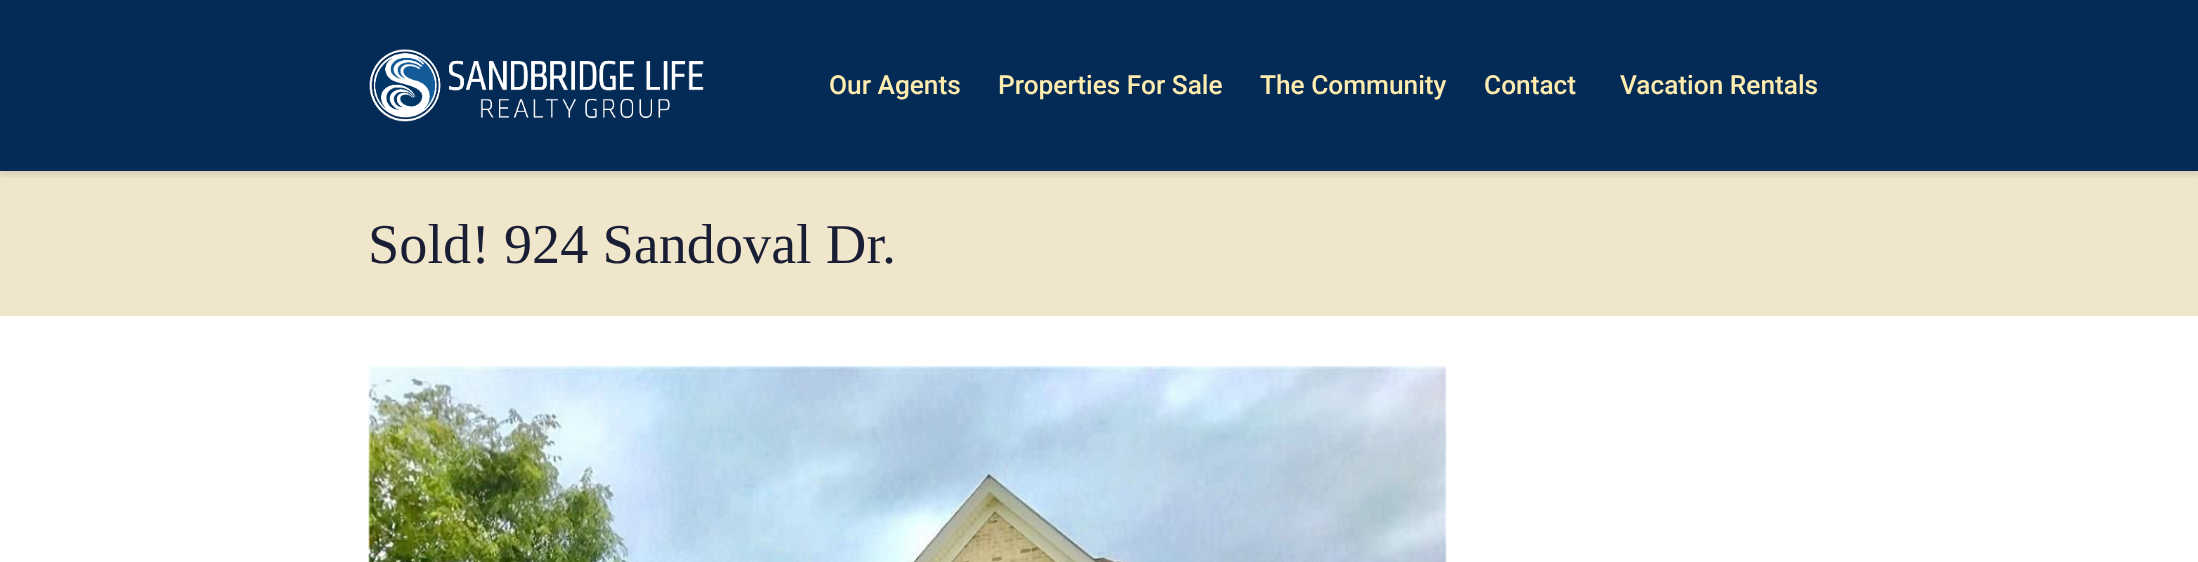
<?xml version="1.0" encoding="UTF-8"?>
<svg xmlns="http://www.w3.org/2000/svg" xmlns:xlink="http://www.w3.org/1999/xlink" width="2198" height="562">
  <defs>
    <clipPath id="clip1"><rect x="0" y="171" width="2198" height="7" /></clipPath>
  </defs>
  <rect width="100%" height="100%" fill="#ffffff" />
  <rect width="2198" height="171" fill="#042a56" />
  <rect y="171" width="2198" height="145" fill="#efe6cb" />
  <g clip-path="url(#clip1)">
    <rect y="4" width="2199" height="171" fill="#000000" fill-opacity="0.1" filter="blur(3px)" />
  </g>
  <image x="369" y="49" width="335" height="73" xlink:href="image1.png" />
  <image x="368" y="366" width="1079" height="196" xlink:href="image2.png" />
  <text x="829" y="94" style="font-family: Roboto; font-size: 26.25px; font-weight: 500; fill: #ffecaf">Our Agents</text>
  <text x="998" y="94" style="font-family: Roboto; font-size: 26.25px; font-weight: 500; fill: #ffecaf">Properties For Sale</text>
  <text x="1260" y="94" style="font-family: Roboto; font-size: 26.25px; font-weight: 500; fill: #ffecaf">The Community</text>
  <text x="1484" y="94" style="font-family: Roboto; font-size: 26.25px; font-weight: 500; fill: #ffecaf">Contact</text>
  <text x="1620" y="94" style="font-family: Roboto; font-size: 26.25px; font-weight: 500; fill: #ffecaf">Vacation Rentals</text>
  <text x="368" y="263" style="font-family: Liberation Serif; font-size: 56.25px; fill: #1a1e35">Sold! 924 Sandoval Dr.</text>
</svg>
